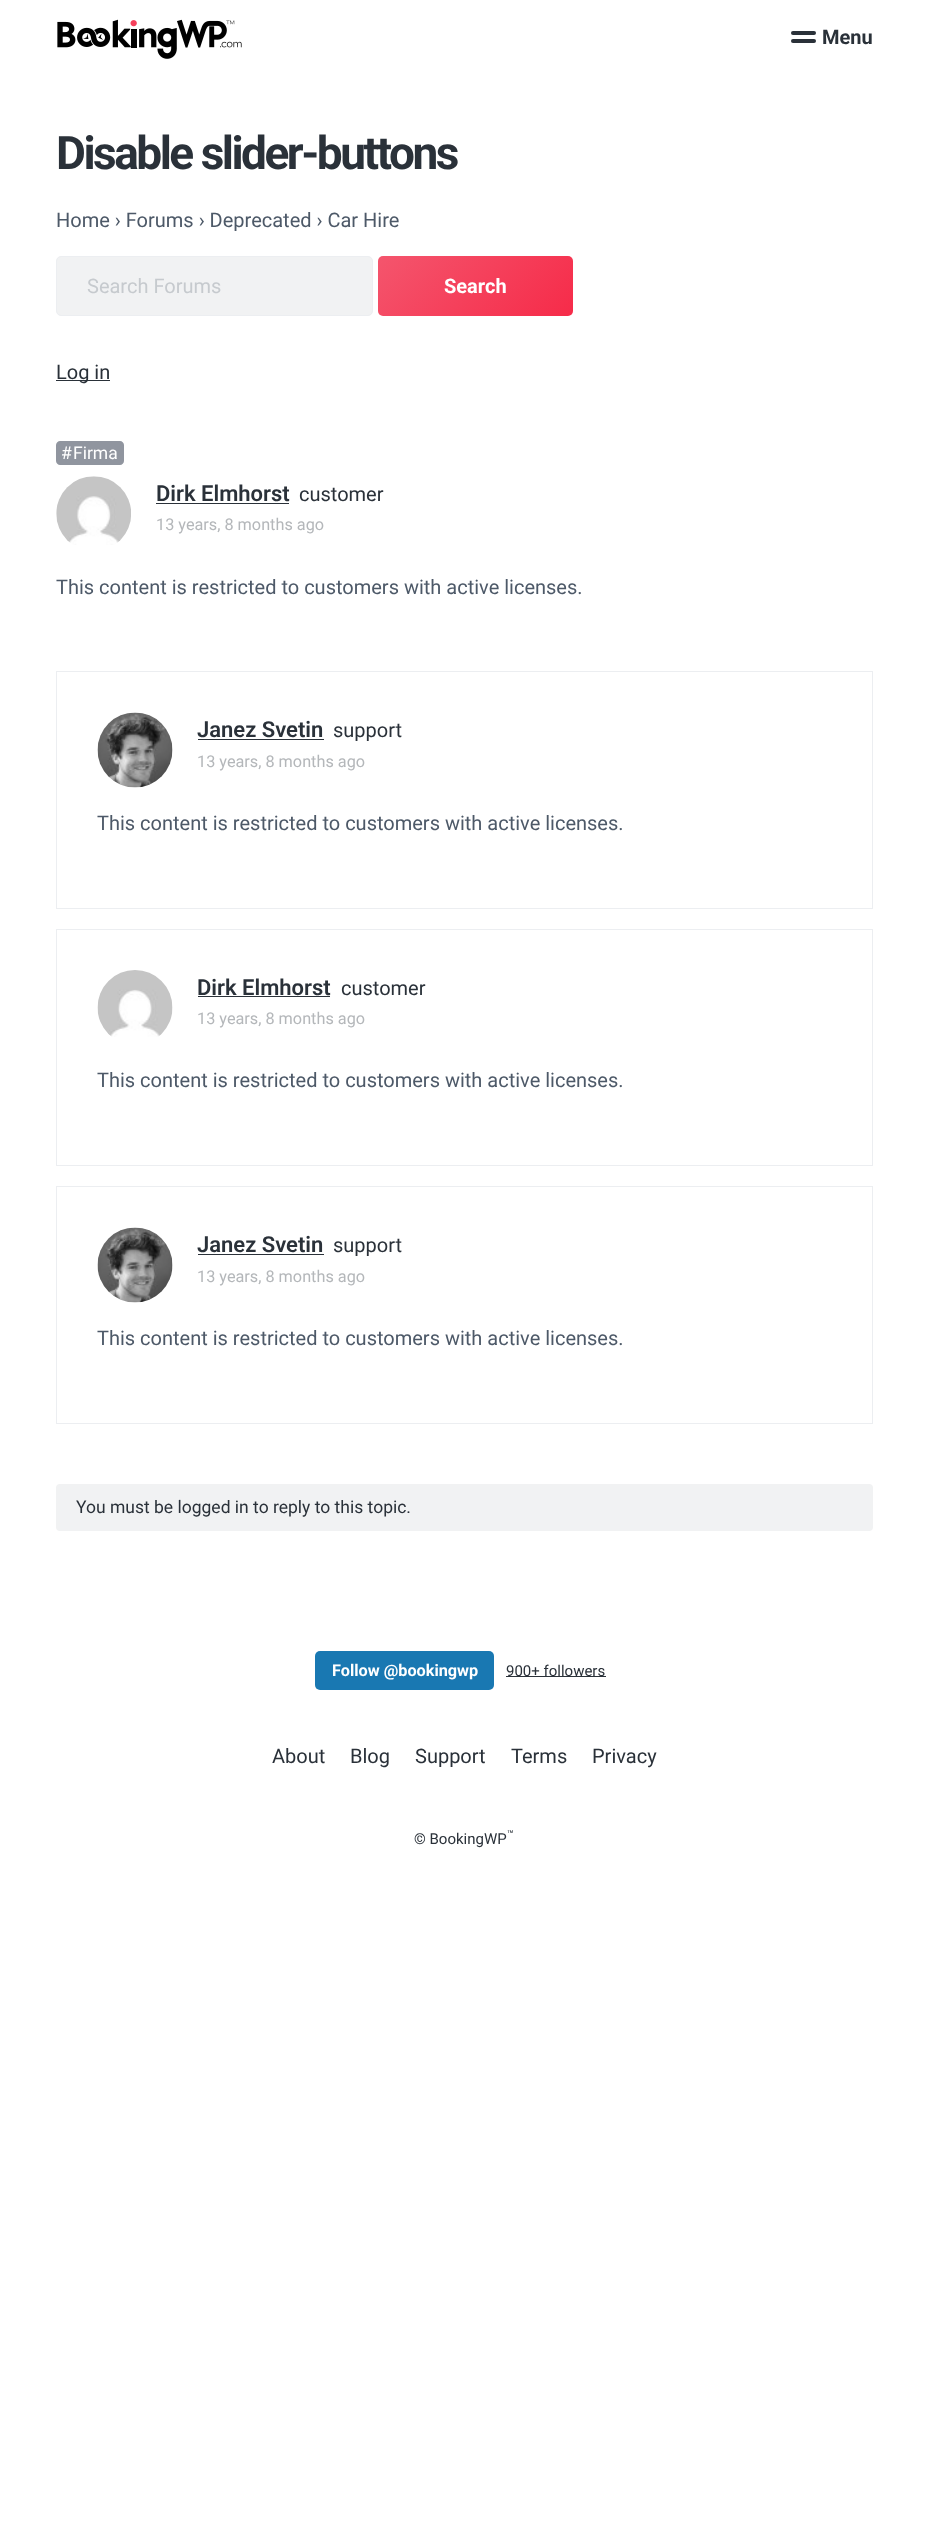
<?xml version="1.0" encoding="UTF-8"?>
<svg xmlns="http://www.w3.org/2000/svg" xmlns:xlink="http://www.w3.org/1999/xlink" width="928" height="2522">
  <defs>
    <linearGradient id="g1" gradientUnits="userSpaceOnUse" x1="411" y1="223" x2="539" y2="350"><stop offset="0" stop-color="#f4556d" /><stop offset="1" stop-color="#f62b49" /></linearGradient>
  </defs>
  <rect width="100%" height="100%" fill="#ffffff" />
  <image x="57" y="19" width="185" height="40" xlink:href="image1.png" />
  <rect x="791" y="31" width="25" height="4" rx="2" fill="#2a3139" />
  <rect x="791" y="39" width="25" height="4" rx="2" fill="#2a3139" />
  <rect x="56.5" y="256.5" width="316" height="59" rx="4.5" fill="#f1f2f3" stroke="#eceef1" />
  <rect x="378" y="256" width="195" height="60" rx="5" fill="url(#g1)" />
  <rect x="56" y="380" width="54" height="1" fill="#2a3139" />
  <path d="M 60 441 h 14 v 24 h -14 c -2 0 -4 -2 -4 -4 v -16 c 0 -2 2 -4 4 -4 z" fill="#90959f" />
  <path d="M 74 441 h 46 c 2 0 4 2 4 4 v 16 c 0 2 -2 4 -4 4 h -46 z" fill="#90959f" />
  <image x="56" y="476" width="75" height="69" xlink:href="image2.png" />
  <rect x="156" y="503" width="133" height="1" fill="#2a3139" />
  <rect x="56.5" y="671.5" width="816" height="237" fill="none" stroke="#eceef1" />
  <image x="97" y="712" width="76" height="76" xlink:href="image3.png" />
  <rect x="198" y="739" width="126" height="1" fill="#2a3139" />
  <rect x="56.5" y="929.5" width="816" height="236" fill="none" stroke="#eceef1" />
  <image x="97" y="970" width="76" height="67" xlink:href="image4.png" />
  <rect x="198" y="996" width="132" height="1" fill="#2a3139" />
  <rect x="56.5" y="1186.5" width="816" height="237" fill="none" stroke="#eceef1" />
  <image x="97" y="1227" width="76" height="76" xlink:href="image5.png" />
  <rect x="198" y="1254" width="126" height="1" fill="#2a3139" />
  <rect x="56" y="1484" width="817" height="47" rx="4" fill="#f1f2f3" />
  <rect x="315" y="1651" width="179" height="39" rx="5" fill="#1978b2" />
  <rect x="506" y="1676" width="100" height="1" fill="#2a3139" />
  <text x="822" y="44" style="font-family: Roboto; font-size: 20px; font-weight: bold; fill: #2a3139">Menu</text>
  <text x="56" y="169" style="font-family: Roboto; font-size: 46px; font-weight: bold; letter-spacing: -2.5px; fill: #2a3139">Disable slider-buttons</text>
  <text x="56" y="227" style="font-family: Roboto; font-size: 20px; fill: #4d5968">Home › Forums › Deprecated › Car Hire</text>
  <text x="87" y="293" style="font-family: Roboto; font-size: 20px; fill: #c6cace">Search Forums</text>
  <text x="444" y="293" style="font-family: Roboto; font-size: 20px; font-weight: bold; fill: #ffffff">Search</text>
  <text x="56" y="379" style="font-family: Roboto; font-size: 20px; fill: #2a3139">Log in</text>
  <text x="61" y="459" style="font-family: Roboto; font-size: 17.5px; fill: #ffffff">#</text>
  <text x="73" y="459" style="font-family: Roboto; font-size: 17.5px; fill: #ffffff">Firma</text>
  <text x="156" y="501" style="font-family: Roboto; font-size: 22px; font-weight: 600; fill: #2a3139">Dirk Elmhorst</text>
  <text x="299" y="501" style="font-family: Roboto; font-size: 20px; fill: #2a3139">customer</text>
  <text x="156" y="530" style="font-family: Roboto; font-size: 16.25px; fill: #b4b7ba">13 years, 8 months ago</text>
  <text x="56" y="594" style="font-family: Roboto; font-size: 20px; fill: #4d5968">This content is restricted to customers with active licenses.</text>
  <text x="197" y="737" style="font-family: Roboto; font-size: 22px; font-weight: 600; fill: #2a3139">Janez Svetin</text>
  <text x="333" y="737" style="font-family: Roboto; font-size: 20px; fill: #2a3139">support</text>
  <text x="197" y="767" style="font-family: Roboto; font-size: 16.25px; fill: #b4b7ba">13 years, 8 months ago</text>
  <text x="97" y="830" style="font-family: Roboto; font-size: 20px; fill: #4d5968">This content is restricted to customers with active licenses.</text>
  <text x="197" y="995" style="font-family: Roboto; font-size: 22px; font-weight: 600; fill: #2a3139">Dirk Elmhorst</text>
  <text x="341" y="995" style="font-family: Roboto; font-size: 20px; fill: #2a3139">customer</text>
  <text x="197" y="1024" style="font-family: Roboto; font-size: 16.25px; fill: #b4b7ba">13 years, 8 months ago</text>
  <text x="97" y="1087" style="font-family: Roboto; font-size: 20px; fill: #4d5968">This content is restricted to customers with active licenses.</text>
  <text x="197" y="1252" style="font-family: Roboto; font-size: 22px; font-weight: 600; fill: #2a3139">Janez Svetin</text>
  <text x="333" y="1252" style="font-family: Roboto; font-size: 20px; fill: #2a3139">support</text>
  <text x="197" y="1282" style="font-family: Roboto; font-size: 16.25px; fill: #b4b7ba">13 years, 8 months ago</text>
  <text x="97" y="1345" style="font-family: Roboto; font-size: 20px; fill: #4d5968">This content is restricted to customers with active licenses.</text>
  <text x="76" y="1513" style="font-family: Roboto; font-size: 17.5px; fill: #2a3139">You must be logged in to reply to this topic.</text>
  <text x="332" y="1676" style="font-family: Roboto; font-size: 16.25px; font-weight: bold; fill: #ffffff">Follow @bookingwp</text>
  <text x="506" y="1676" style="font-family: Roboto; font-size: 15px; fill: #2a3139">900+ followers</text>
  <text x="272" y="1763" style="font-family: Roboto; font-size: 20px; fill: #2a3139">About</text>
  <text x="350" y="1763" style="font-family: Roboto; font-size: 20px; fill: #2a3139">Blog</text>
  <text x="415" y="1763" style="font-family: Roboto; font-size: 20px; fill: #2a3139">Support</text>
  <text x="511" y="1763" style="font-family: Roboto; font-size: 20px; fill: #2a3139">Terms</text>
  <text x="592" y="1763" style="font-family: Roboto; font-size: 20px; fill: #2a3139">Privacy</text>
  <text x="507" y="1838" style="font-family: Roboto; font-size: 11px; fill: #2a3139">™</text>
  <text x="414" y="1844" style="font-family: Roboto; font-size: 15px; fill: #2a3139">© BookingWP</text>
</svg>
